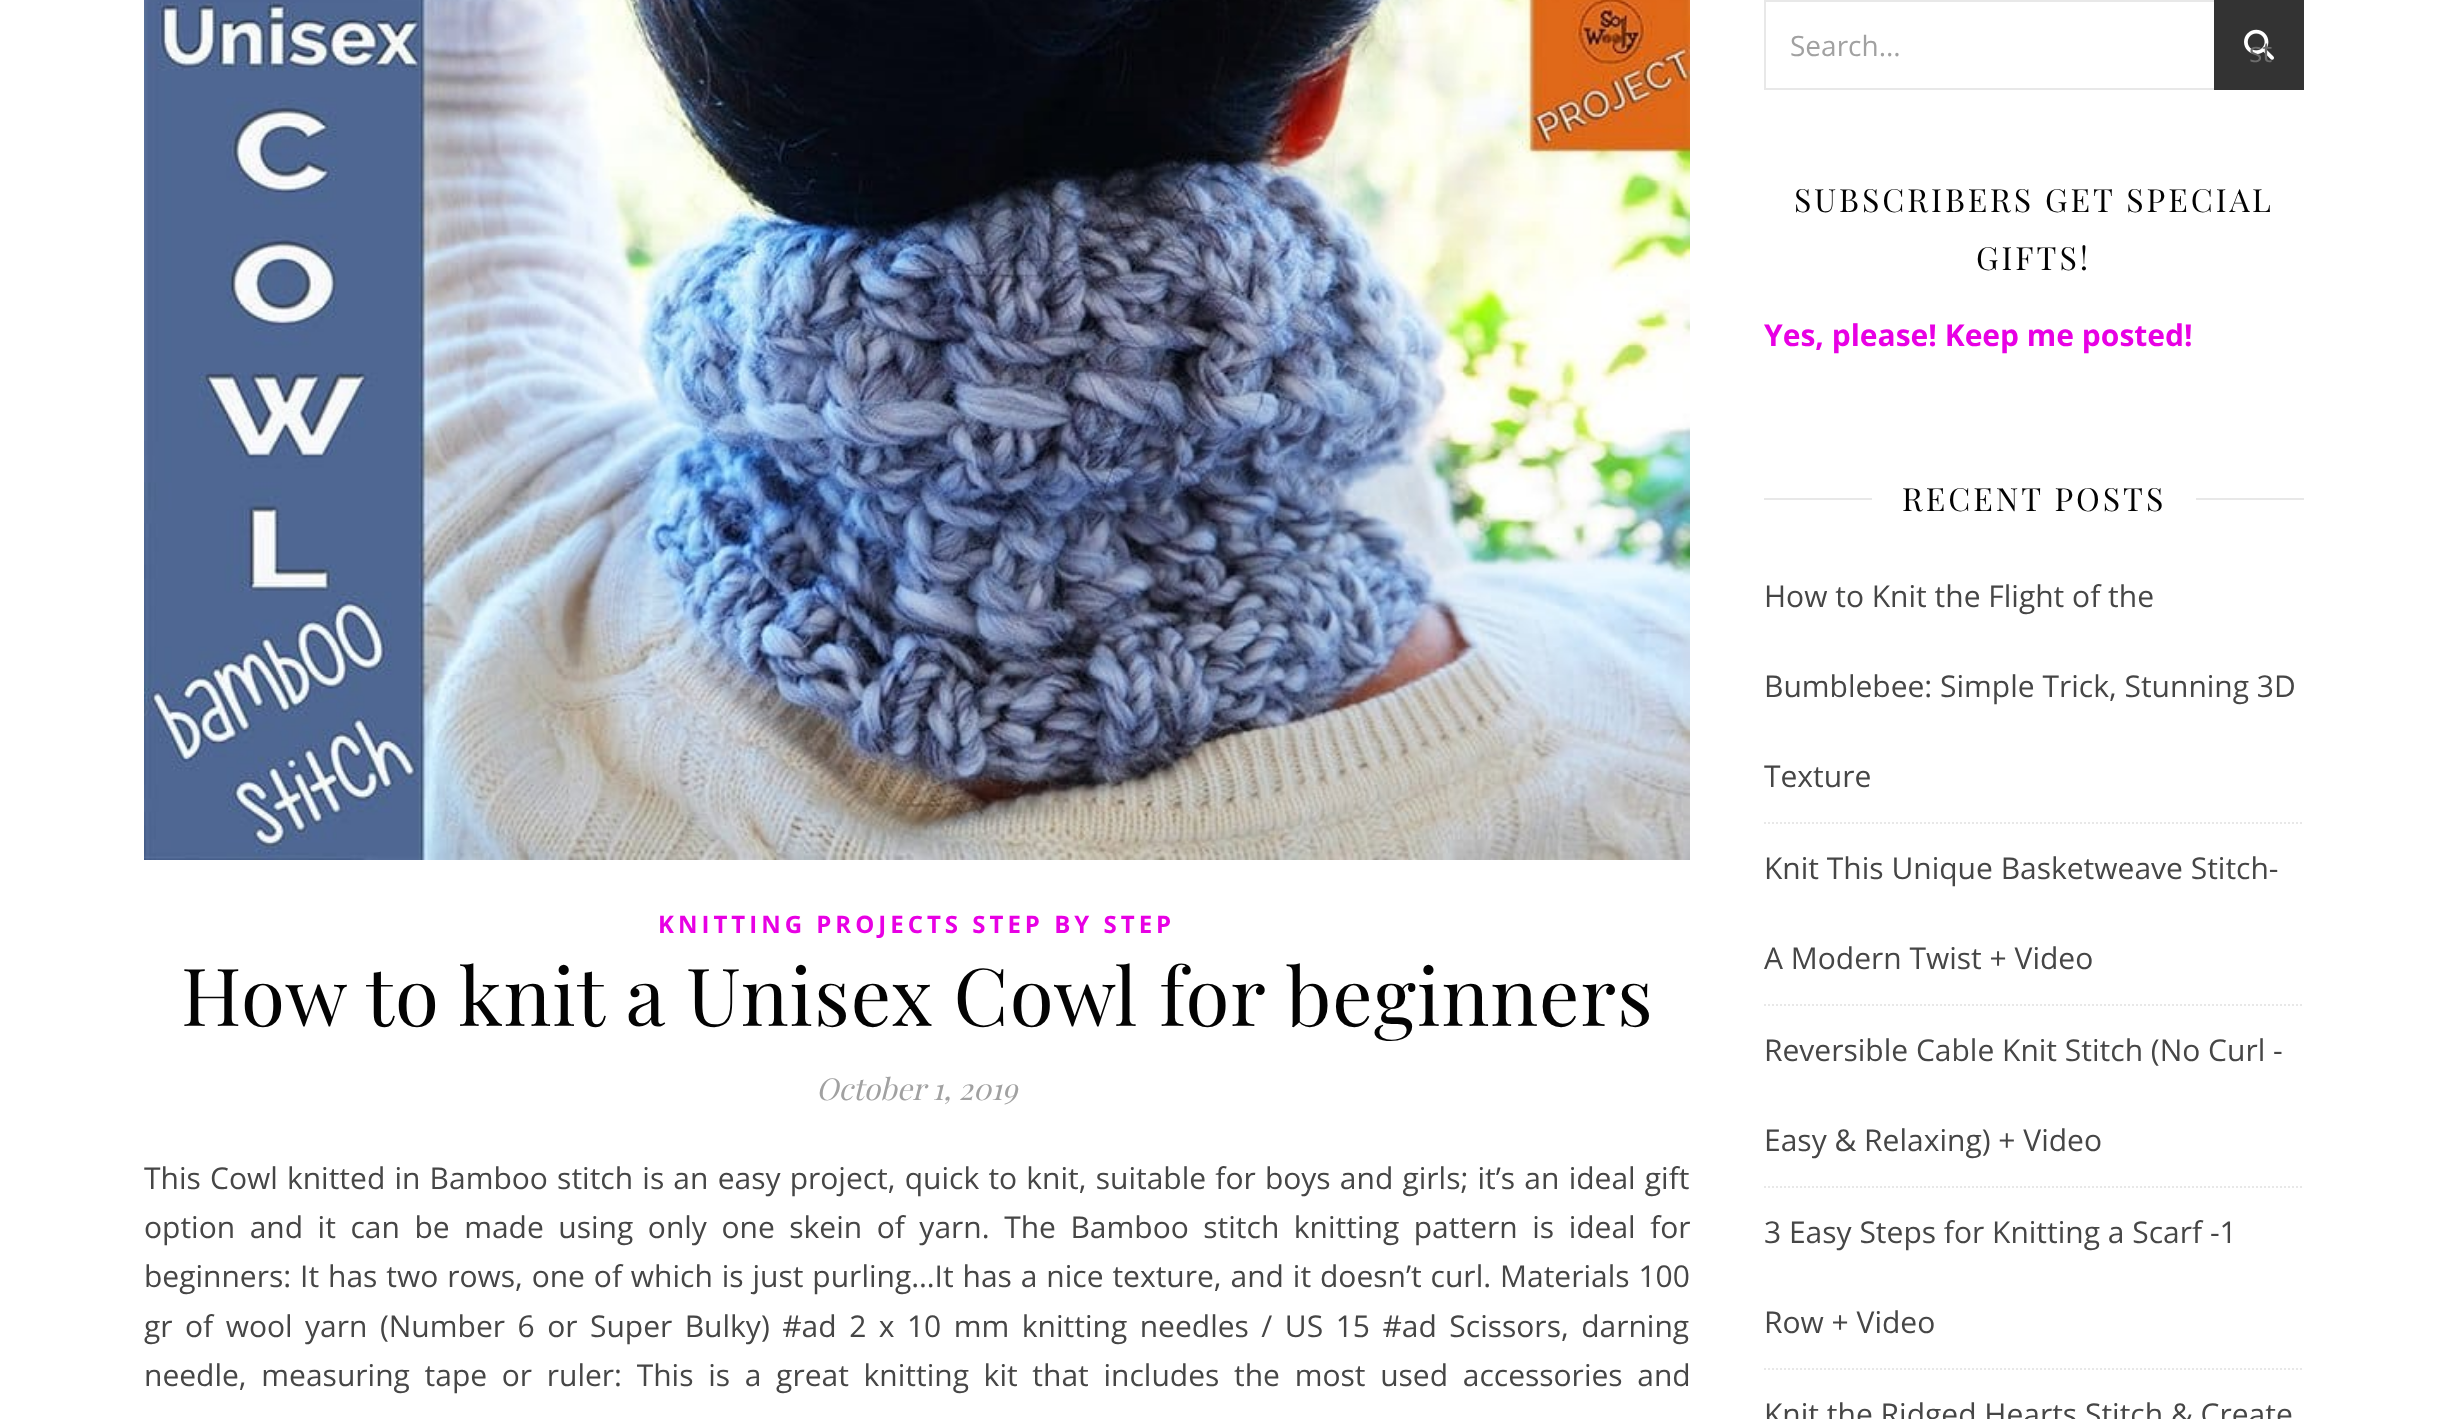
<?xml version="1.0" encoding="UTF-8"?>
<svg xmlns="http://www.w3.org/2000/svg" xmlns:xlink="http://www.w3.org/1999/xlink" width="2448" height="1419">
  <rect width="100%" height="100%" fill="#ffffff" />
  <image x="144" y="0" width="1546" height="860" xlink:href="image1.png" />
  <rect x="1765" y="1" width="538" height="88" fill="none" stroke="#e8e8e8" stroke-width="2" />
  <rect x="2214" width="90" height="90" fill="#333333" />
  <image x="2244" y="29" width="30" height="31" xlink:href="image2.png" />
  <rect x="1764" y="498" width="108" height="2" fill="#e8e8e8" />
  <rect x="2196" y="498" width="108" height="2" fill="#e8e8e8" />
  <path d="M 1764 823 h 540" fill="none" stroke="#e8e8e8" stroke-width="2" stroke-dasharray="2 2" />
  <path d="M 1764 1005 h 540" fill="none" stroke="#e8e8e8" stroke-width="2" stroke-dasharray="2 2" />
  <path d="M 1764 1187 h 540" fill="none" stroke="#e8e8e8" stroke-width="2" stroke-dasharray="2 2" />
  <path d="M 1764 1369 h 540" fill="none" stroke="#e8e8e8" stroke-width="2" stroke-dasharray="2 2" />
  <text x="658" y="933" style="font-family: Open Sans; font-size: 24px; font-weight: bold; letter-spacing: 4px; fill: #e800e4">KNITTING PROJECTS STEP BY STEP</text>
  <text x="181" y="1026" style="font-family: Playfair Display; font-size: 80px; letter-spacing: 1px; fill: #030303">How to knit a Unisex Cowl for beginners</text>
  <text x="816" y="1100" style="font-family: Playfair Display; font-size: 30px; font-style: italic; fill: #a1a1a1">October 1, 2019</text>
  <text x="144" y="1189" word-spacing="1.4" style="font-family: Open Sans; font-size: 30px; fill: #464646">This Cowl knitted in Bamboo stitch is an easy project, quick to knit, suitable for boys and girls; it’s an ideal gift</text>
  <text x="144" y="1238" word-spacing="6.75" style="font-family: Open Sans; font-size: 30px; fill: #464646">option and it can be made using only one skein of yarn. The Bamboo stitch knitting pattern is ideal for</text>
  <text x="144" y="1287" word-spacing="1.1" style="font-family: Open Sans; font-size: 30px; fill: #464646">beginners: It has two rows, one of which is just purling…It has a nice texture, and it doesn’t curl. Materials 100</text>
  <text x="144" y="1337" word-spacing="4.7" style="font-family: Open Sans; font-size: 30px; fill: #464646">gr of wool yarn (Number 6 or Super Bulky) #ad 2 x 10 mm knitting needles / US 15 #ad Scissors, darning</text>
  <text x="144" y="1386" word-spacing="6.9" style="font-family: Open Sans; font-size: 30px; fill: #464646">needle, measuring tape or ruler: This is a great knitting kit that includes the most used accessories and</text>
  <text x="1790" y="56" style="font-family: Open Sans; font-size: 28px; fill: #a1a1a1">Search...</text>
  <text x="2249" y="62" style="font-family: Open Sans; font-size: 28px; fill: #6c6c6c">st</text>
  <text x="1794" y="212" style="font-family: Playfair Display; font-size: 32px; letter-spacing: 3px; fill: #030303">SUBSCRIBERS GET SPECIAL</text>
  <text x="1976" y="270" style="font-family: Playfair Display; font-size: 32px; letter-spacing: 3px; fill: #030303">GIFTS!</text>
  <text x="1764" y="346" style="font-family: Open Sans; font-size: 30px; font-weight: bold; fill: #e800e4">Yes, please! Keep me posted!</text>
  <text x="1902" y="511" style="font-family: Playfair Display; font-size: 32px; letter-spacing: 3px; fill: #030303">RECENT POSTS</text>
  <text x="1764" y="607" style="font-family: Open Sans; font-size: 30px; fill: #464646">How to Knit the Flight of the</text>
  <text x="1764" y="697" style="font-family: Open Sans; font-size: 30px; fill: #464646">Bumblebee: Simple Trick, Stunning 3D</text>
  <text x="1764" y="787" style="font-family: Open Sans; font-size: 30px; fill: #464646">Texture</text>
  <text x="1764" y="879" style="font-family: Open Sans; font-size: 30px; fill: #464646">Knit This Unique Basketweave Stitch-</text>
  <text x="1764" y="969" style="font-family: Open Sans; font-size: 30px; fill: #464646">A Modern Twist + Video</text>
  <text x="1764" y="1061" style="font-family: Open Sans; font-size: 30px; fill: #464646">Reversible Cable Knit Stitch (No Curl -</text>
  <text x="1764" y="1151" style="font-family: Open Sans; font-size: 30px; fill: #464646">Easy &amp; Relaxing) + Video</text>
  <text x="1764" y="1243" style="font-family: Open Sans; font-size: 30px; fill: #464646">3 Easy Steps for Knitting a Scarf -1</text>
  <text x="1764" y="1333" style="font-family: Open Sans; font-size: 30px; fill: #464646">Row + Video</text>
  <text x="1764" y="1425" style="font-family: Open Sans; font-size: 30px; fill: #464646">Knit the Ridged Hearts Stitch &amp; Create</text>
</svg>
